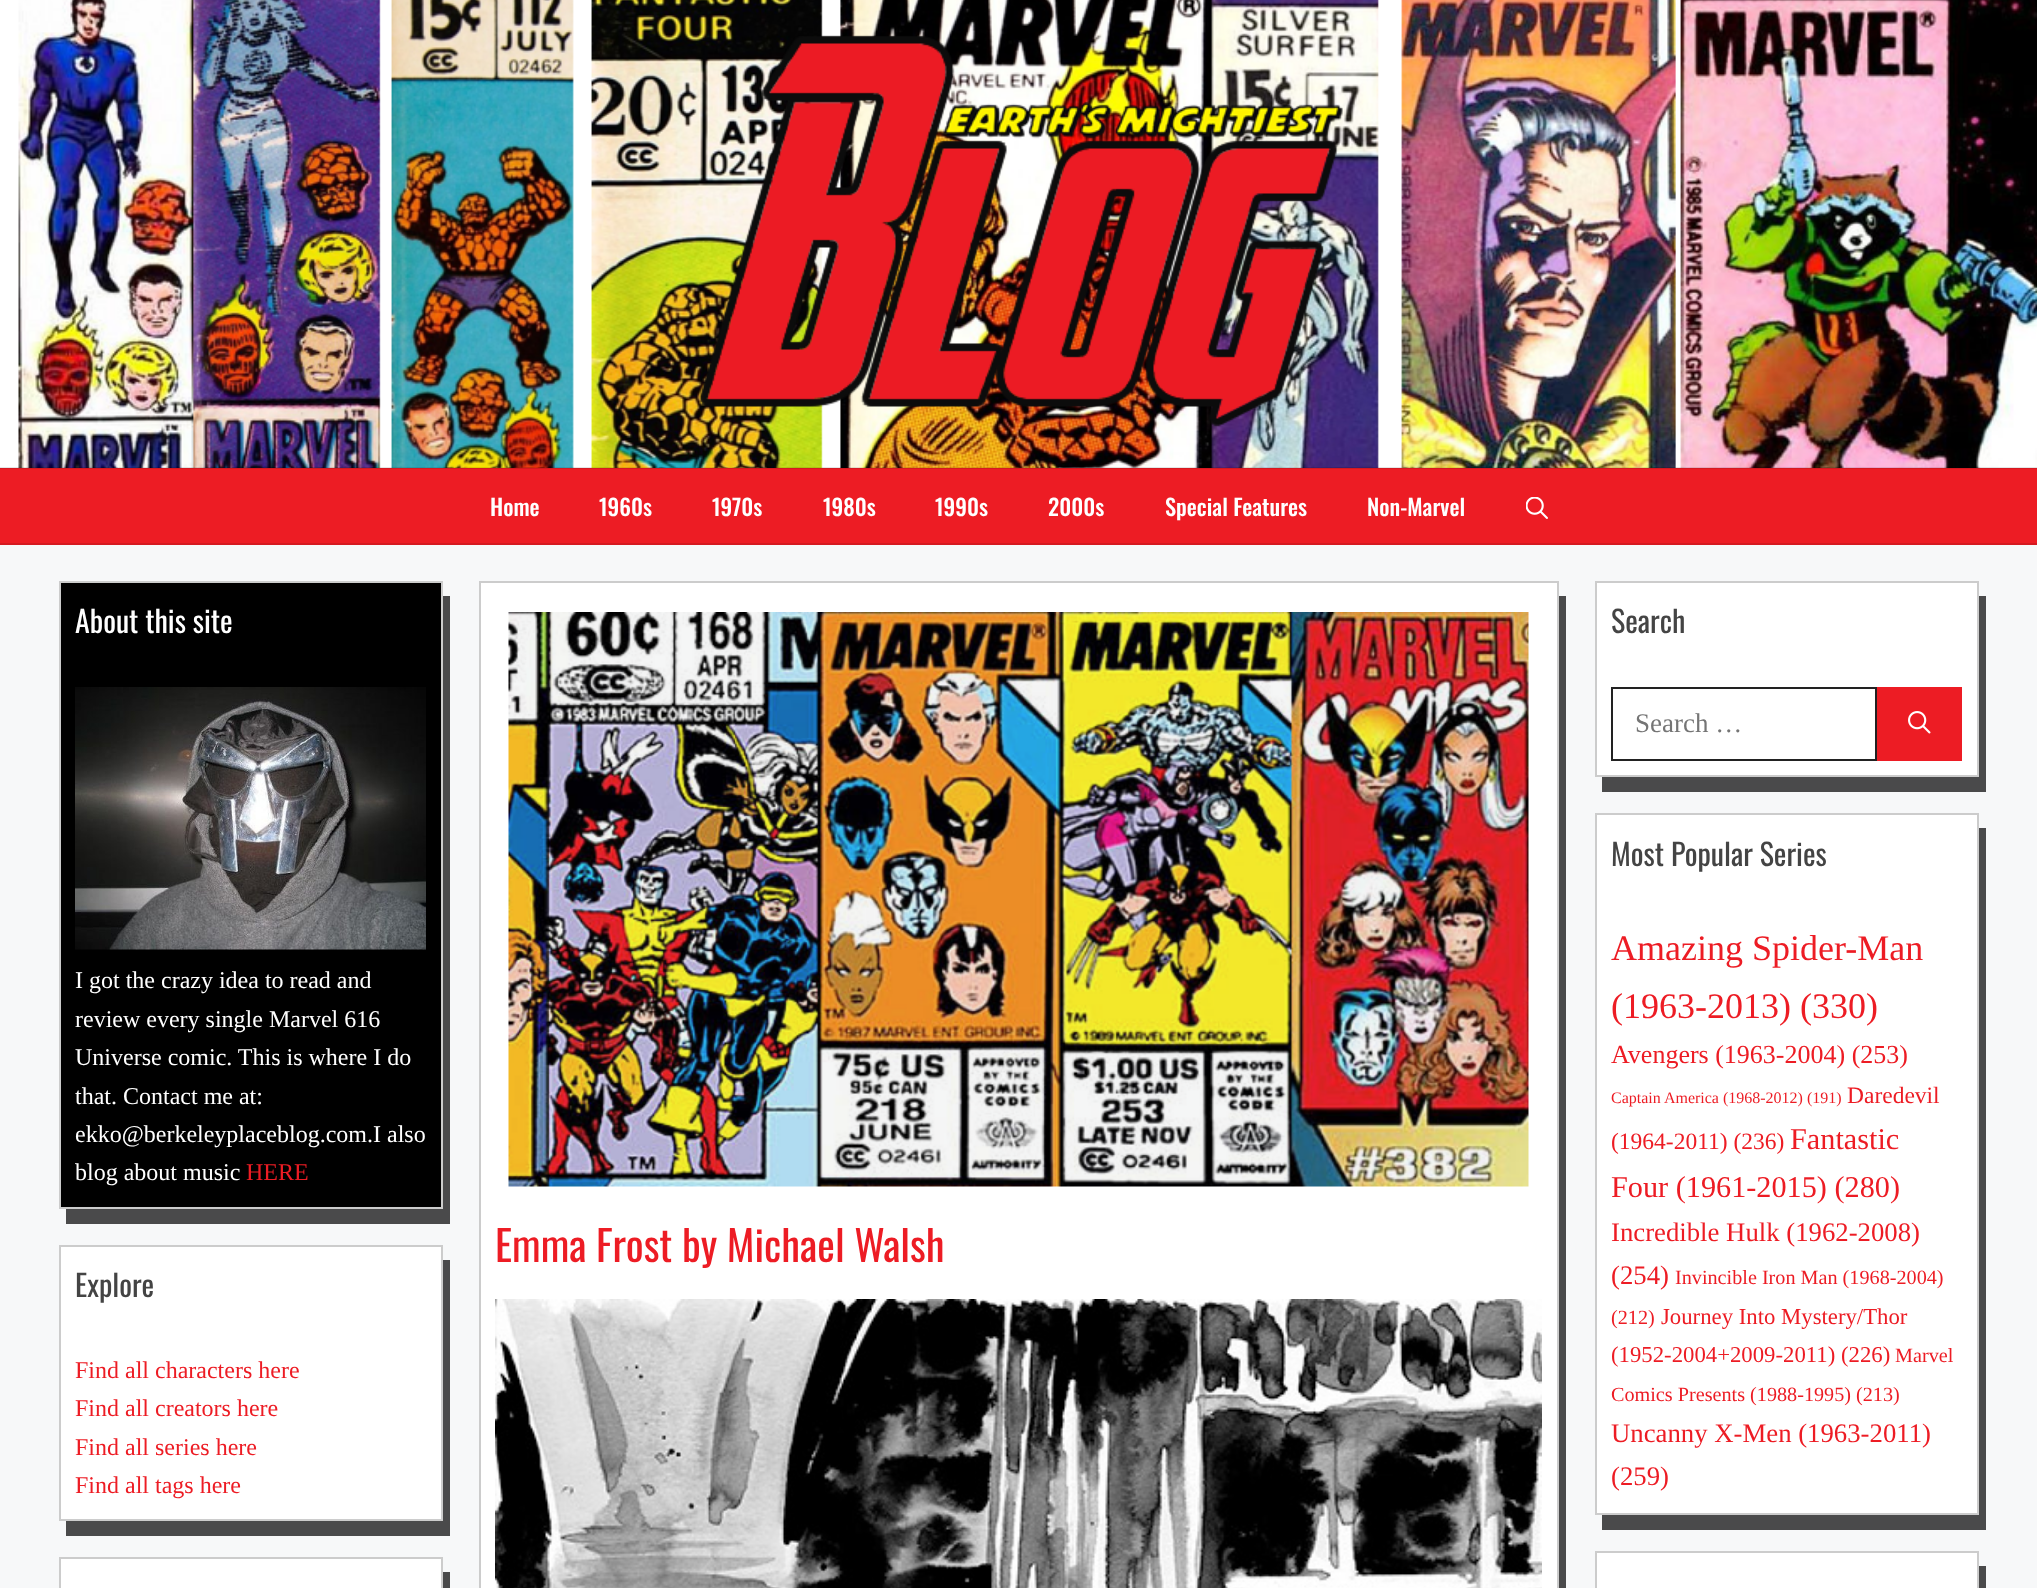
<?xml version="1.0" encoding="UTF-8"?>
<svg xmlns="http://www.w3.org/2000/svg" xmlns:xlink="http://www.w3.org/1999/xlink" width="2037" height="1588">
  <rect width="100%" height="100%" fill="#f7f8f9" />
  <image x="0" y="0" width="2037" height="468" xlink:href="image1.png" />
  <rect y="468" width="2037" height="75" fill="#ed1c24" />
  <rect y="467" width="2037" height="2" fill="#000000" fill-opacity="0.1" />
  <image x="699" y="35" width="644" height="392" xlink:href="image2.png" />
  <rect y="543" width="2037" height="2" fill="#d51920" />
  <image x="1526" y="497" width="22" height="22" xlink:href="image3.png" />
  <path d="M 66 1209 v 15 h 384 v -628 h -8 v 613 z" fill="#4a4a4b" />
  <rect x="60" y="582" width="382" height="626" fill="#000000" stroke="#cccccc" stroke-width="2" />
  <image x="75" y="687" width="351" height="263" xlink:href="image4.png" />
  <path d="M 66 1521 v 15 h 384 v -276 h -8 v 261 z" fill="#4a4a4b" />
  <rect x="60" y="1246" width="382" height="274" fill="#ffffff" stroke="#cccccc" stroke-width="2" />
  <path d="M 66 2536 v 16 h 384 v -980 h -8 v 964 z" fill="#4a4a4b" />
  <rect x="60" y="1558" width="382" height="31" fill="#ffffff" stroke="#cccccc" stroke-width="2" />
  <path d="M 486 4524 v 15 h 1080 v -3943 h -8 v 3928 z" fill="#4a4a4b" />
  <rect x="480" y="582" width="1078" height="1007" fill="#ffffff" stroke="#cccccc" stroke-width="2" />
  <image x="508" y="612" width="1021" height="575" xlink:href="image5.png" />
  <image x="495" y="1299" width="1047" height="289" xlink:href="image6.png" />
  <path d="M 1602 777 v 15 h 384 v -196 h -8 v 181 z" fill="#4a4a4b" />
  <rect x="1596" y="582" width="382" height="194" fill="#ffffff" stroke="#cccccc" stroke-width="2" />
  <rect x="1612" y="688" width="264" height="72" fill="none" stroke="#222222" stroke-width="2" />
  <rect x="1877" y="687" width="85" height="74" fill="#ed1c24" />
  <image x="1908" y="711" width="23" height="23" xlink:href="image7.png" />
  <path d="M 1602 1515 v 15 h 384 v -702 h -8 v 687 z" fill="#4a4a4b" />
  <rect x="1596" y="814" width="382" height="700" fill="#ffffff" stroke="#cccccc" stroke-width="2" />
  <path d="M 1602 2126 v 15 h 384 v -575 h -8 v 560 z" fill="#4a4a4b" />
  <rect x="1596" y="1552" width="382" height="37" fill="#ffffff" stroke="#cccccc" stroke-width="2" />
  <text x="490" y="516" style="font-family: Oswald; font-size: 22.5px; font-weight: 500; fill: #ffffff">Home</text>
  <text x="599" y="516" style="font-family: Oswald; font-size: 22.5px; font-weight: 500; fill: #ffffff">1960s</text>
  <text x="712" y="516" style="font-family: Oswald; font-size: 22.5px; font-weight: 500; fill: #ffffff">1970s</text>
  <text x="823" y="516" style="font-family: Oswald; font-size: 22.5px; font-weight: 500; fill: #ffffff">1980s</text>
  <text x="935" y="516" style="font-family: Oswald; font-size: 22.5px; font-weight: 500; fill: #ffffff">1990s</text>
  <text x="1048" y="516" style="font-family: Oswald; font-size: 22.5px; font-weight: 500; fill: #ffffff">2000s</text>
  <text x="1165" y="516" style="font-family: Oswald; font-size: 22.5px; font-weight: 500; fill: #ffffff">Special Features</text>
  <text x="1367" y="516" style="font-family: Oswald; font-size: 22.5px; font-weight: 500; fill: #ffffff">Non-Marvel</text>
  <text x="75" y="633" style="font-family: Oswald; font-size: 30px; fill: #ffffff">About this site</text>
  <text x="75" y="988" style="font-family: Liberation Serif; font-size: 24px; fill: #ffffff">I got the crazy idea to read and</text>
  <text x="75" y="1027" style="font-family: Liberation Serif; font-size: 24px; fill: #ffffff">review every single Marvel 616</text>
  <text x="75" y="1065" style="font-family: Liberation Serif; font-size: 24px; fill: #ffffff">Universe comic. This is where I do</text>
  <text x="75" y="1104" style="font-family: Liberation Serif; font-size: 24px; fill: #ffffff">that. Contact me at:</text>
  <text x="75" y="1142" style="font-family: Liberation Serif; font-size: 24px; fill: #ffffff">ekko@berkeleyplaceblog.com.I also</text>
  <text x="75" y="1180" style="font-family: Liberation Serif; font-size: 24px; fill: #ffffff">blog about music</text>
  <text x="246" y="1180" style="font-family: Liberation Serif; font-size: 24px; fill: #ed1c24">HERE</text>
  <text x="75" y="1297" style="font-family: Oswald; font-size: 30px; fill: #444444">Explore</text>
  <text x="75" y="1378" style="font-family: Liberation Serif; font-size: 24px; fill: #ed1c24">Find all characters here</text>
  <text x="75" y="1416" style="font-family: Liberation Serif; font-size: 24px; fill: #ed1c24">Find all creators here</text>
  <text x="75" y="1455" style="font-family: Liberation Serif; font-size: 24px; fill: #ed1c24">Find all series here</text>
  <text x="75" y="1493" style="font-family: Liberation Serif; font-size: 24px; fill: #ed1c24">Find all tags here</text>
  <text x="495" y="1262" style="font-family: Oswald; font-size: 42px; fill: #ed1c24">Emma Frost by Michael Walsh</text>
  <text x="1611" y="633" style="font-family: Oswald; font-size: 30px; fill: #444444">Search</text>
  <text x="1635" y="732" style="font-family: Liberation Serif; font-size: 27px; fill: #757575">Search …</text>
  <text x="1611" y="866" style="font-family: Oswald; font-size: 30px; fill: #444444">Most Popular Series</text>
  <text x="1611" y="960" style="font-family: Liberation Serif; font-size: 36px; fill: #ed1c24">Amazing Spider-Man</text>
  <text x="1611" y="1018" style="font-family: Liberation Serif; font-size: 36px; fill: #ed1c24">(1963-2013) (330)</text>
  <text x="1611" y="1063" style="font-family: Liberation Serif; font-size: 26px; fill: #ed1c24">Avengers (1963-2004) (253)</text>
  <text x="1611" y="1103" style="font-family: Liberation Serif; font-size: 16px; fill: #ed1c24">Captain America (1968-2012) (191)</text>
  <text x="1847" y="1103" style="font-family: Liberation Serif; font-size: 23.5px; fill: #ed1c24">Daredevil</text>
  <text x="1611" y="1149" style="font-family: Liberation Serif; font-size: 23.5px; fill: #ed1c24">(1964-2011) (236)</text>
  <text x="1790" y="1149" style="font-family: Liberation Serif; font-size: 30.25px; fill: #ed1c24">Fantastic</text>
  <text x="1611" y="1197" style="font-family: Liberation Serif; font-size: 30.25px; fill: #ed1c24">Four (1961-2015) (280)</text>
  <text x="1611" y="1241" style="font-family: Liberation Serif; font-size: 26.75px; fill: #ed1c24">Incredible Hulk (1962-2008)</text>
  <text x="1611" y="1284" style="font-family: Liberation Serif; font-size: 26.75px; fill: #ed1c24">(254)</text>
  <text x="1675" y="1284" style="font-family: Liberation Serif; font-size: 20.2px; fill: #ed1c24">Invincible Iron Man (1968-2004)</text>
  <text x="1611" y="1324" style="font-family: Liberation Serif; font-size: 20.2px; fill: #ed1c24">(212)</text>
  <text x="1661" y="1324" style="font-family: Liberation Serif; font-size: 22.75px; fill: #ed1c24">Journey Into Mystery/Thor</text>
  <text x="1611" y="1362" style="font-family: Liberation Serif; font-size: 22.75px; fill: #ed1c24">(1952-2004+2009-2011) (226)</text>
  <text x="1895" y="1362" style="font-family: Liberation Serif; font-size: 20.2px; fill: #ed1c24">Marvel</text>
  <text x="1611" y="1401" style="font-family: Liberation Serif; font-size: 20.2px; fill: #ed1c24">Comics Presents (1988-1995) (213)</text>
  <text x="1611" y="1442" style="font-family: Liberation Serif; font-size: 26.75px; fill: #ed1c24">Uncanny X-Men (1963-2011)</text>
  <text x="1611" y="1485" style="font-family: Liberation Serif; font-size: 26.75px; fill: #ed1c24">(259)</text>
</svg>
